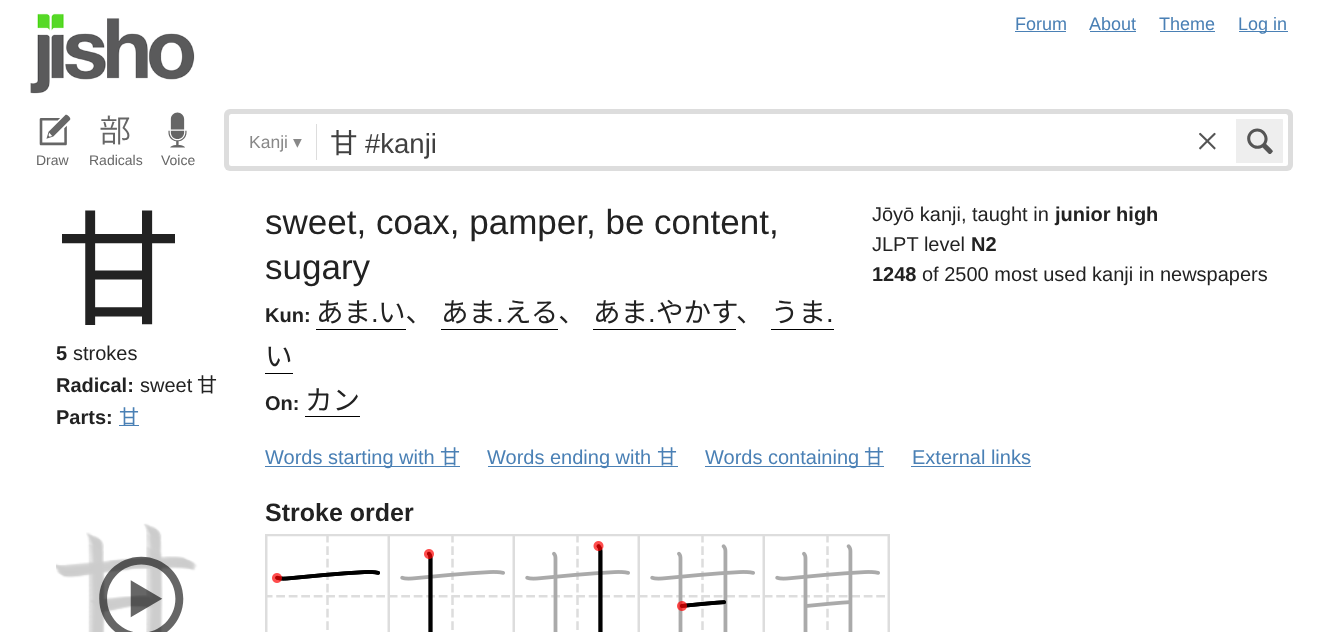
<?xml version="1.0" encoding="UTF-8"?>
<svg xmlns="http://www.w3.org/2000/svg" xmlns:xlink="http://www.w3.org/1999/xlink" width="1325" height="632">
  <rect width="100%" height="100%" fill="#ffffff" />
  <image x="30" y="13" width="165" height="81" xlink:href="image1.png" />
  <rect x="1015" y="31" width="51" height="1" fill="#4a80b5" />
  <rect x="1090" y="31" width="46" height="1" fill="#4a80b5" />
  <rect x="1160" y="31" width="55" height="1" fill="#4a80b5" />
  <rect x="1239" y="31" width="49" height="1" fill="#4a80b5" />
  <rect x="224" y="109" width="1069" height="62" rx="6" fill="#dddddd" />
  <rect x="229" y="114" width="1059" height="52" rx="2.5" fill="#ffffff" />
  <rect x="316" y="124" width="1" height="36" fill="#dddddd" />
  <image x="1199" y="132" width="17" height="18" xlink:href="image2.png" />
  <path d="M 1236 119 h 46 c 0.5 0 1 0.5 1 1 v 42 c 0 0.5 -0.5 1 -1 1 h -46 z" fill="#eeeeee" />
  <image x="1247" y="128" width="26" height="26" xlink:href="image3.png" />
  <image x="39" y="114" width="32" height="32" xlink:href="image4.png" />
  <image x="100" y="115" width="30" height="30" xlink:href="image5.png" />
  <image x="168" y="112" width="19" height="36" xlink:href="image6.png" />
  <rect x="119" y="425" width="20" height="1" fill="#4a80b5" />
  <rect x="316" y="329" width="90" height="1" fill="#000000" />
  <rect x="441" y="329" width="117" height="1" fill="#000000" />
  <rect x="593" y="329" width="143" height="1" fill="#000000" />
  <rect x="771" y="329" width="63" height="1" fill="#000000" />
  <rect x="265" y="373" width="28" height="1" fill="#000000" />
  <rect x="305" y="416" width="55" height="1" fill="#000000" />
  <rect x="265" y="466" width="195" height="1" fill="#4a80b5" />
  <rect x="488" y="466" width="190" height="1" fill="#4a80b5" />
  <rect x="705" y="466" width="179" height="1" fill="#4a80b5" />
  <rect x="911" y="466" width="120" height="1" fill="#4a80b5" />
  <image x="265" y="534" width="625" height="98" xlink:href="image7.png" />
  <image x="56" y="523" width="142" height="109" xlink:href="image8.png" />
  <image x="99" y="556" width="85" height="76" xlink:href="image9.png" />
  <text x="1015" y="30" style="font-family: Liberation Sans; font-size: 18px; fill: #4a80b5">Forum</text>
  <text x="1089" y="30" style="font-family: Liberation Sans; font-size: 18px; fill: #4a80b5">About</text>
  <text x="1159" y="30" style="font-family: Liberation Sans; font-size: 18px; fill: #4a80b5">Theme</text>
  <text x="1238" y="30" style="font-family: Liberation Sans; font-size: 18px; fill: #4a80b5">Log in</text>
  <text x="249" y="148" style="font-family: Liberation Sans; font-size: 17.5px; fill: #888888">Kanji</text>
  <text x="293" y="148" style="font-family: DejaVu Sans; font-size: 17.5px; fill: #888888">▾</text>
  <text x="330" y="153" style="font-family: Noto Sans CJK JP; font-size: 27.5px; fill: #404040">甘</text>
  <text x="365" y="153" style="font-family: Liberation Sans; font-size: 27.5px; fill: #404040">#kanji</text>
  <text x="36" y="165" style="font-family: Liberation Sans; font-size: 14px; fill: #666666">Draw</text>
  <text x="89" y="165" style="font-family: Liberation Sans; font-size: 14px; fill: #666666">Radicals</text>
  <text x="161" y="165" style="font-family: Liberation Sans; font-size: 14px; fill: #666666">Voice</text>
  <text x="56" y="315" style="font-family: Noto Sans CJK JP; font-size: 125px; fill: #222222">甘</text>
  <text x="56" y="360" style="font-family: Liberation Sans; font-size: 20px; font-weight: bold; fill: #222222">5</text>
  <text x="73" y="360" style="font-family: Liberation Sans; font-size: 20px; fill: #222222">strokes</text>
  <text x="56" y="392" style="font-family: Liberation Sans; font-size: 20px; font-weight: bold; fill: #222222">Radical:</text>
  <text x="140" y="392" style="font-family: Liberation Sans; font-size: 20px; fill: #222222">sweet</text>
  <text x="197" y="392" style="font-family: Noto Sans CJK JP; font-size: 20px; fill: #222222">甘</text>
  <text x="56" y="424" style="font-family: Liberation Sans; font-size: 20px; font-weight: bold; fill: #222222">Parts:</text>
  <text x="119" y="424" style="font-family: Noto Sans CJK JP; font-size: 20px; fill: #4a80b5">甘</text>
  <text x="265" y="234" style="font-family: Liberation Sans; font-size: 35px; fill: #222222">sweet, coax, pamper, be content,</text>
  <text x="265" y="279" style="font-family: Liberation Sans; font-size: 35px; fill: #222222">sugary</text>
  <text x="265" y="322" style="font-family: Liberation Sans; font-size: 20px; font-weight: bold; fill: #222222">Kun:</text>
  <text x="316" y="322" style="font-family: Noto Sans CJK JP; font-size: 27.5px; fill: #222222">あま</text>
  <text x="371" y="322" style="font-family: Liberation Sans; font-size: 27.5px; fill: #222222">.</text>
  <text x="378" y="322" style="font-family: Noto Sans CJK JP; font-size: 27.5px; fill: #222222">い、</text>
  <text x="441" y="322" style="font-family: Noto Sans CJK JP; font-size: 27.5px; fill: #222222">あま</text>
  <text x="496" y="322" style="font-family: Liberation Sans; font-size: 27.5px; fill: #222222">.</text>
  <text x="504" y="322" style="font-family: Noto Sans CJK JP; font-size: 27.5px; fill: #222222">える、</text>
  <text x="593" y="322" style="font-family: Noto Sans CJK JP; font-size: 27.5px; fill: #222222">あま</text>
  <text x="648" y="322" style="font-family: Liberation Sans; font-size: 27.5px; fill: #222222">.</text>
  <text x="656" y="322" style="font-family: Noto Sans CJK JP; font-size: 27.5px; fill: #222222">やかす</text>
  <text x="736" y="322" style="font-family: Noto Sans CJK JP; font-size: 27.5px; fill: #222222">、</text>
  <text x="771" y="322" style="font-family: Noto Sans CJK JP; font-size: 27.5px; fill: #222222">うま</text>
  <text x="826" y="322" style="font-family: Liberation Sans; font-size: 27.5px; fill: #222222">.</text>
  <text x="265" y="366" style="font-family: Noto Sans CJK JP; font-size: 27.5px; fill: #222222">い</text>
  <text x="265" y="410" style="font-family: Liberation Sans; font-size: 20px; font-weight: bold; fill: #222222">On:</text>
  <text x="305" y="410" style="font-family: Noto Sans CJK JP; font-size: 27.5px; fill: #222222">カン</text>
  <text x="872" y="221" style="font-family: Liberation Sans; font-size: 20px; fill: #222222">Jōyō kanji, taught in</text>
  <text x="1055" y="221" style="font-family: Liberation Sans; font-size: 20px; font-weight: bold; fill: #222222">junior high</text>
  <text x="872" y="251" style="font-family: Liberation Sans; font-size: 20px; fill: #222222">JLPT level</text>
  <text x="971" y="251" style="font-family: Liberation Sans; font-size: 20px; font-weight: bold; fill: #222222">N2</text>
  <text x="872" y="281" style="font-family: Liberation Sans; font-size: 20px; font-weight: bold; fill: #222222">1248</text>
  <text x="922" y="281" style="font-family: Liberation Sans; font-size: 20px; fill: #222222">of 2500 most used kanji in newspapers</text>
  <text x="265" y="464" style="font-family: Liberation Sans; font-size: 20px; fill: #4a80b5">Words starting with</text>
  <text x="440" y="464" style="font-family: Noto Sans CJK JP; font-size: 20px; fill: #4a80b5">甘</text>
  <text x="487" y="464" style="font-family: Liberation Sans; font-size: 20px; fill: #4a80b5">Words ending with</text>
  <text x="657" y="464" style="font-family: Noto Sans CJK JP; font-size: 20px; fill: #4a80b5">甘</text>
  <text x="705" y="464" style="font-family: Liberation Sans; font-size: 20px; fill: #4a80b5">Words containing</text>
  <text x="864" y="464" style="font-family: Noto Sans CJK JP; font-size: 20px; fill: #4a80b5">甘</text>
  <text x="912" y="464" style="font-family: Liberation Sans; font-size: 20px; fill: #4a80b5">External links</text>
  <text x="265" y="521" style="font-family: Liberation Sans; font-size: 25px; font-weight: bold; fill: #222222">Stroke order</text>
</svg>
